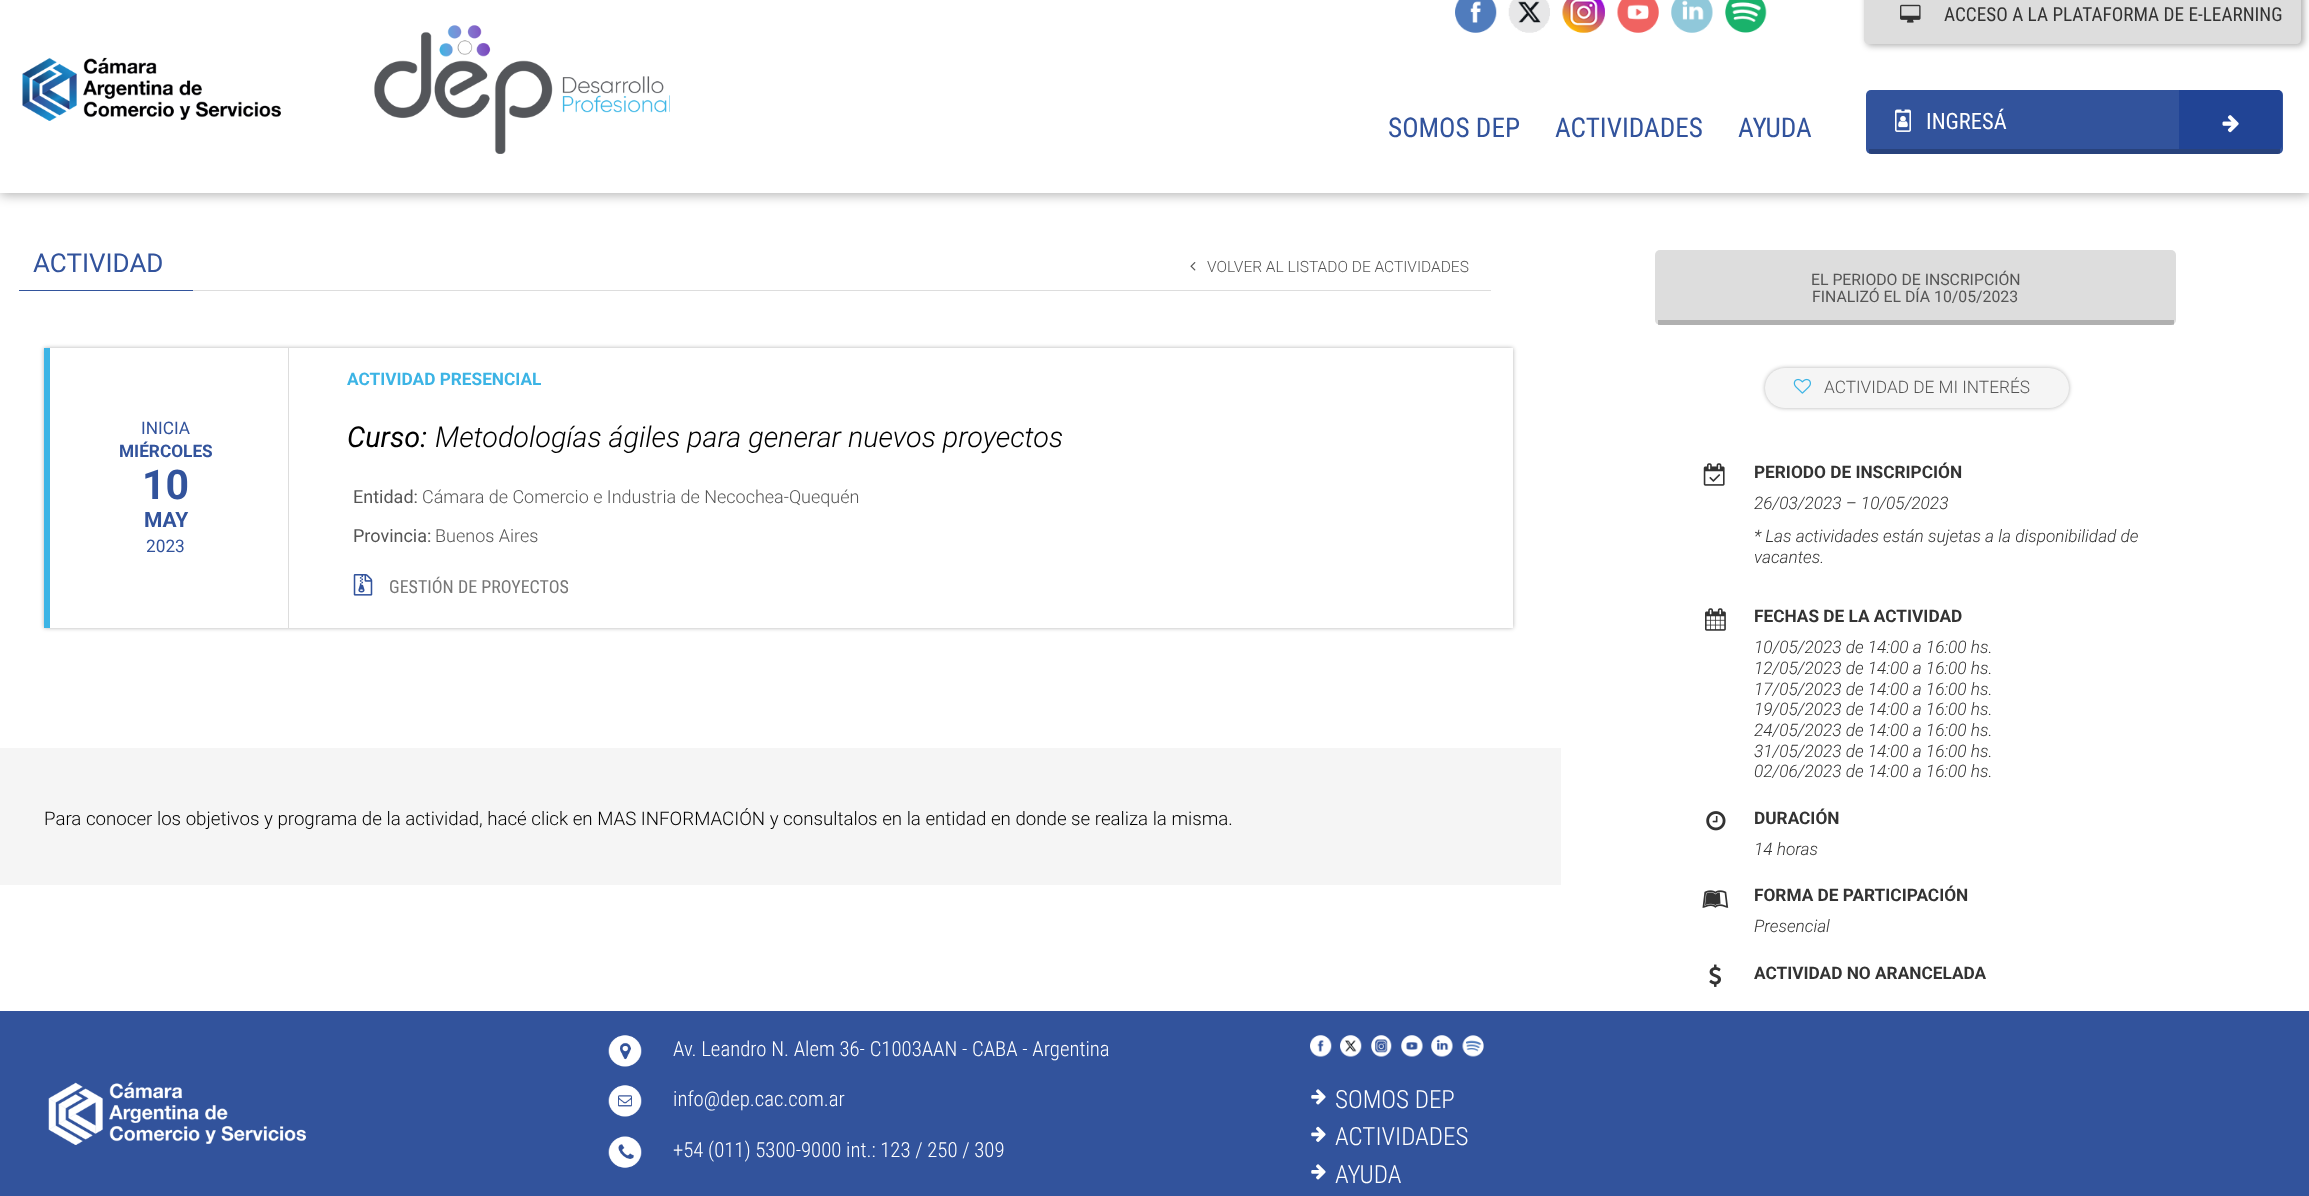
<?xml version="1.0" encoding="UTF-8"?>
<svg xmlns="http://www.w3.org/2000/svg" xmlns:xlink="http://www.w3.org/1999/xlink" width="2309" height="1196">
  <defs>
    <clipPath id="clip1"><path d="M 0 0 h 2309 v 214 h -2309 z m 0 -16 h 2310 v 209 h -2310 z" clip-rule="evenodd" /></clipPath>
  </defs>
  <rect width="100%" height="100%" fill="#ffffff" />
  <g clip-path="url(#clip1)">
    <rect y="-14" width="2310" height="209" fill="#000000" fill-opacity="0.3" filter="blur(6px)" />
  </g>
  <image x="22" y="25" width="648" height="129" xlink:href="image1.png" />
  <image x="1455" y="0" width="42" height="33" xlink:href="image2.png" />
  <image x="1508" y="0" width="42" height="33" xlink:href="image3.png" />
  <image x="1562" y="0" width="43" height="33" xlink:href="image4.png" />
  <image x="1617" y="0" width="42" height="33" xlink:href="image5.png" />
  <image x="1671" y="0" width="42" height="33" xlink:href="image6.png" />
  <image x="1725" y="0" width="42" height="33" xlink:href="image7.png" />
  <rect x="1866" y="-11" width="438" height="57" rx="5" fill="#000000" fill-opacity="0.3" filter="blur(3px)" />
  <path d="M 1864 -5 h 437 v 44 c 0 3 -2 5 -5 5 h -427 c -3 0 -5 -2 -5 -5 z" fill="#dddddd" />
  <image x="1900" y="4" width="21" height="19" xlink:href="image8.png" />
  <rect x="1866" y="90" width="417" height="64" rx="5" fill="#32539c" />
  <rect x="1869" y="149" width="411" height="5" fill="#000000" fill-opacity="0.2" />
  <image x="1895" y="109" width="16" height="23" xlink:href="image9.png" />
  <path d="M 2179 90 h 99 c 2 0 4 2 4 5 v 51 c 0 1 -1 2 -2 3 h -101 z" fill="#214495" />
  <image x="2222" y="115" width="17" height="18" xlink:href="image10.png" />
  <rect x="19" y="290" width="174" height="1" fill="#32539c" />
  <image x="1190" y="262" width="6" height="9" xlink:href="image11.png" />
  <rect x="193" y="290" width="1298" height="1" fill="#dddddd" />
  <rect x="1655" y="250" width="521" height="75" rx="5" fill="#dddddd" />
  <rect x="1658" y="320" width="516" height="5" fill="#000000" fill-opacity="0.2" />
  <rect x="44" y="348" width="1469" height="280" fill="#000000" fill-opacity="0.3" filter="blur(2px)" />
  <rect x="50" y="348" width="1463" height="280" fill="#ffffff" />
  <rect x="44" y="348" width="6" height="280" fill="#3cb4e5" />
  <rect x="288" y="348" width="1" height="280" fill="#dddddd" />
  <image x="353" y="574" width="20" height="22" xlink:href="image12.png" />
  <rect y="748" width="1561" height="137" fill="#f5f5f5" />
  <rect x="1765" y="368" width="304" height="40" rx="20" fill="#000000" fill-opacity="0.3" filter="blur(2px)" />
  <rect x="1765" y="368" width="304" height="40" rx="20" fill="#f5f5f5" />
  <image x="1793" y="378" width="18" height="16" xlink:href="image13.png" />
  <image x="1703" y="463" width="22" height="23" xlink:href="image14.png" />
  <image x="1705" y="608" width="21" height="23" xlink:href="image15.png" />
  <image x="1706" y="811" width="20" height="20" xlink:href="image16.png" />
  <image x="1702" y="890" width="27" height="18" xlink:href="image17.png" />
  <image x="1709" y="964" width="12" height="23" xlink:href="image18.png" />
  <rect y="1011" width="2309" height="185" fill="#32539c" />
  <image x="48" y="1082" width="258" height="63" xlink:href="image19.png" />
  <image x="608" y="1035" width="34" height="32" xlink:href="image20.png" />
  <image x="608" y="1085" width="34" height="32" xlink:href="image21.png" />
  <image x="608" y="1136" width="34" height="32" xlink:href="image22.png" />
  <image x="1310" y="1035" width="22" height="22" xlink:href="image23.png" />
  <image x="1340" y="1035" width="22" height="22" xlink:href="image24.png" />
  <image x="1371" y="1035" width="21" height="22" xlink:href="image25.png" />
  <image x="1401" y="1035" width="22" height="22" xlink:href="image26.png" />
  <image x="1431" y="1035" width="22" height="22" xlink:href="image27.png" />
  <image x="1462" y="1035" width="22" height="22" xlink:href="image28.png" />
  <image x="1311" y="1089" width="15" height="16" xlink:href="image29.png" />
  <image x="1311" y="1126" width="15" height="16" xlink:href="image30.png" />
  <image x="1311" y="1164" width="15" height="16" xlink:href="image29.png" />
  <text x="1944" y="21" style="font-family: Roboto Condensed; font-size: 19.2px; fill: #333333">ACCESO A LA PLATAFORMA DE E-LEARNING</text>
  <text x="1926" y="129" style="font-family: Roboto Condensed; font-size: 22.5px; fill: #ffffff">INGRESÁ</text>
  <text x="1388" y="137" style="font-family: Roboto Condensed; font-size: 27.25px; fill: #32539c">SOMOS DEP</text>
  <text x="1555" y="137" style="font-family: Roboto Condensed; font-size: 27.25px; fill: #32539c">ACTIVIDADES</text>
  <text x="1738" y="137" style="font-family: Roboto Condensed; font-size: 27.25px; fill: #32539c">AYUDA</text>
  <text x="33" y="272" style="font-family: Roboto; font-size: 26px; fill: #32539c">ACTIVIDAD</text>
  <text x="1207" y="272" style="font-family: Roboto; font-size: 15.5px; font-weight: 300; fill: #555555">VOLVER AL LISTADO DE ACTIVIDADES</text>
  <text x="1811" y="285" style="font-family: Roboto; font-size: 15.8px; fill: #555555">EL PERIODO DE INSCRIPCIÓN</text>
  <text x="1812" y="302" style="font-family: Roboto; font-size: 15.8px; fill: #555555">FINALIZÓ EL DÍA 10/05/2023</text>
  <text x="141" y="434" style="font-family: Roboto; font-size: 17.25px; fill: #32539c">INICIA</text>
  <text x="119" y="457" style="font-family: Roboto; font-size: 17.25px; font-weight: bold; fill: #32539c">MIÉRCOLES</text>
  <text x="142" y="499" style="font-family: Roboto; font-size: 41px; font-weight: bold; fill: #32539c">10</text>
  <text x="144" y="527" style="font-family: Roboto; font-size: 21px; font-weight: bold; fill: #32539c">MAY</text>
  <text x="146" y="552" style="font-family: Roboto; font-size: 17.25px; fill: #32539c">2023</text>
  <text x="347" y="385" style="font-family: Roboto; font-size: 17.25px; font-weight: bold; fill: #3cb4e5">ACTIVIDAD PRESENCIAL</text>
  <text x="347" y="447" style="font-family: Roboto; font-size: 28.75px; font-style: italic; fill: #000000">Curso:</text>
  <text x="435" y="447" style="font-family: Roboto; font-size: 28.75px; font-weight: 300; font-style: italic; fill: #000000">Metodologías ágiles para generar nuevos proyectos</text>
  <text x="353" y="503" style="font-family: Roboto; font-size: 18px; fill: #555555">Entidad:</text>
  <text x="422" y="503" style="font-family: Roboto; font-size: 18px; font-weight: 300; fill: #555555">Cámara de Comercio e Industria de Necochea-Quequén</text>
  <text x="353" y="542" style="font-family: Roboto; font-size: 18px; fill: #555555">Provincia:</text>
  <text x="435" y="542" style="font-family: Roboto; font-size: 18px; font-weight: 300; fill: #555555">Buenos Aires</text>
  <text x="389" y="593" style="font-family: Roboto Condensed; font-size: 18px; fill: #777777">GESTIÓN DE PROYECTOS</text>
  <text x="44" y="825" style="font-family: Roboto; font-size: 18.7px; font-weight: 300; fill: #000000">Para conocer los objetivos y programa de la actividad, hacé click en MAS INFORMACIÓN y consultalos en la entidad en donde se realiza la misma.</text>
  <text x="1824" y="393" style="font-family: Roboto; font-size: 17.25px; font-weight: 300; fill: #555555">ACTIVIDAD DE MI INTERÉS</text>
  <text x="1754" y="478" style="font-family: Roboto; font-size: 17.25px; font-weight: bold; fill: #333333">PERIODO DE INSCRIPCIÓN</text>
  <text x="1754" y="509" style="font-family: Roboto; font-size: 17.25px; font-weight: 300; font-style: italic; fill: #333333">26/03/2023 – 10/05/2023</text>
  <text x="1754" y="542" style="font-family: Roboto; font-size: 17.25px; font-weight: 300; font-style: italic; fill: #333333">* Las actividades están sujetas a la disponibilidad de</text>
  <text x="1754" y="563" style="font-family: Roboto; font-size: 17.25px; font-weight: 300; font-style: italic; fill: #333333">vacantes.</text>
  <text x="1754" y="622" style="font-family: Roboto; font-size: 17.25px; font-weight: bold; fill: #333333">FECHAS DE LA ACTIVIDAD</text>
  <text x="1754" y="653" style="font-family: Roboto; font-size: 17.25px; font-weight: 300; font-style: italic; fill: #333333">10/05/2023 de 14:00 a 16:00 hs.</text>
  <text x="1754" y="674" style="font-family: Roboto; font-size: 17.25px; font-weight: 300; font-style: italic; fill: #333333">12/05/2023 de 14:00 a 16:00 hs.</text>
  <text x="1754" y="695" style="font-family: Roboto; font-size: 17.25px; font-weight: 300; font-style: italic; fill: #333333">17/05/2023 de 14:00 a 16:00 hs.</text>
  <text x="1754" y="715" style="font-family: Roboto; font-size: 17.25px; font-weight: 300; font-style: italic; fill: #333333">19/05/2023 de 14:00 a 16:00 hs.</text>
  <text x="1754" y="736" style="font-family: Roboto; font-size: 17.25px; font-weight: 300; font-style: italic; fill: #333333">24/05/2023 de 14:00 a 16:00 hs.</text>
  <text x="1754" y="757" style="font-family: Roboto; font-size: 17.25px; font-weight: 300; font-style: italic; fill: #333333">31/05/2023 de 14:00 a 16:00 hs.</text>
  <text x="1754" y="777" style="font-family: Roboto; font-size: 17.25px; font-weight: 300; font-style: italic; fill: #333333">02/06/2023 de 14:00 a 16:00 hs.</text>
  <text x="1754" y="824" style="font-family: Roboto; font-size: 17.25px; font-weight: bold; fill: #333333">DURACIÓN</text>
  <text x="1754" y="855" style="font-family: Roboto; font-size: 17.25px; font-weight: 300; font-style: italic; fill: #333333">14 horas</text>
  <text x="1754" y="901" style="font-family: Roboto; font-size: 17.25px; font-weight: bold; fill: #333333">FORMA DE PARTICIPACIÓN</text>
  <text x="1754" y="932" style="font-family: Roboto; font-size: 17.25px; font-weight: 300; font-style: italic; fill: #333333">Presencial</text>
  <text x="1754" y="979" style="font-family: Roboto; font-size: 17.25px; font-weight: bold; fill: #333333">ACTIVIDAD NO ARANCELADA</text>
  <text x="673" y="1056" style="font-family: Roboto Condensed; font-size: 20.75px; font-weight: 300; fill: #ffffff">Av. Leandro N. Alem 36- C1003AAN - CABA - Argentina</text>
  <text x="673" y="1106" style="font-family: Roboto Condensed; font-size: 20.75px; font-weight: 300; fill: #ffffff">info@dep.cac.com.ar</text>
  <text x="673" y="1157" style="font-family: Roboto Condensed; font-size: 20.75px; font-weight: 300; fill: #ffffff">+54 (011) 5300-9000 int.: 123 / 250 / 309</text>
  <text x="1335" y="1108" style="font-family: Roboto Condensed; font-size: 25px; font-weight: 300; fill: #ffffff">SOMOS DEP</text>
  <text x="1335" y="1145" style="font-family: Roboto Condensed; font-size: 25px; font-weight: 300; fill: #ffffff">ACTIVIDADES</text>
  <text x="1335" y="1183" style="font-family: Roboto Condensed; font-size: 25px; font-weight: 300; fill: #ffffff">AYUDA</text>
</svg>
